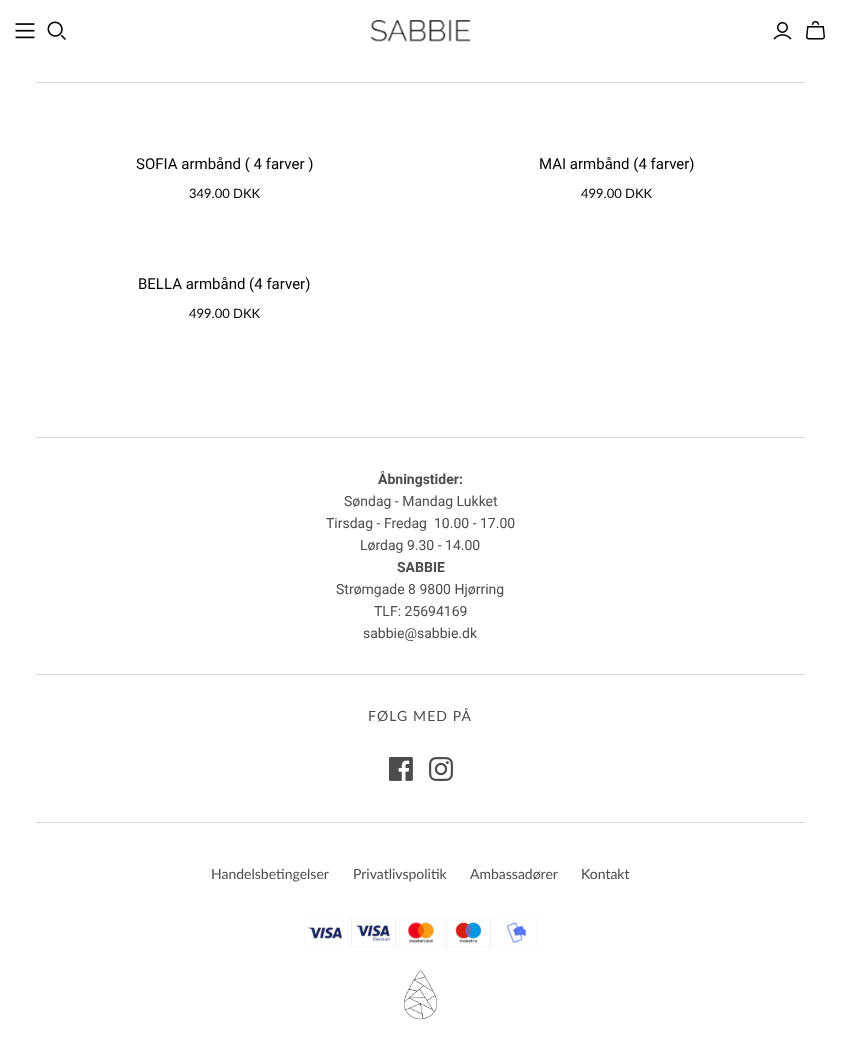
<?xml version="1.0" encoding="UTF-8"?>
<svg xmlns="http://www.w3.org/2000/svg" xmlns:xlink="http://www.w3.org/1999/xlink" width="841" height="1037">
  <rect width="100%" height="100%" fill="#ffffff" />
  <image x="370" y="20" width="101" height="22" xlink:href="image1.png" />
  <image x="15" y="23" width="20" height="16" xlink:href="image2.png" />
  <image x="47" y="21" width="19" height="19" xlink:href="image3.png" />
  <image x="773" y="22" width="19" height="18" xlink:href="image4.png" />
  <image x="806" y="21" width="19" height="19" xlink:href="image5.png" />
  <rect x="36" y="82" width="769" height="1" fill="#d4d4d4" />
  <rect x="36" y="437" width="769" height="1" fill="#d4d4d4" />
  <rect x="36" y="822" width="769" height="1" fill="#d4d4d4" />
  <rect x="36" y="674" width="769" height="1" fill="#d4d4d4" />
  <image x="389" y="757" width="24" height="24" xlink:href="image6.png" />
  <image x="429" y="757" width="24" height="24" xlink:href="image7.png" />
  <image x="304" y="918" width="234" height="30" xlink:href="image8.png" />
  <image x="404" y="970" width="33" height="50" xlink:href="image9.png" />
  <text x="136" y="169" style="font-family: Roboto; font-size: 15px; fill: #000000">SOFIA armbånd ( 4 farver )</text>
  <text x="189" y="198" style="font-family: Lato; font-size: 13px; fill: #000000">349.00 DKK</text>
  <text x="539" y="169" style="font-family: Roboto; font-size: 15px; fill: #000000">MAI armbånd (4 farver)</text>
  <text x="581" y="198" style="font-family: Lato; font-size: 13px; fill: #000000">499.00 DKK</text>
  <text x="138" y="289" style="font-family: Roboto; font-size: 15px; fill: #000000">BELLA armbånd (4 farver)</text>
  <text x="189" y="318" style="font-family: Lato; font-size: 13px; fill: #000000">499.00 DKK</text>
  <text x="378" y="484" style="font-family: Roboto; font-size: 14px; font-weight: bold; fill: #4c4c4c">Åbningstider:</text>
  <text x="344" y="506" style="font-family: Roboto; font-size: 14px; fill: #4c4c4c">Søndag - Mandag Lukket</text>
  <text x="326" y="528" style="font-family: Roboto; font-size: 14px; fill: #4c4c4c">Tirsdag - Fredag</text>
  <text x="434" y="528" style="font-family: Roboto; font-size: 14px; fill: #4c4c4c">10.00 - 17.00</text>
  <text x="360" y="550" style="font-family: Roboto; font-size: 14px; fill: #4c4c4c">Lørdag 9.30 - 14.00</text>
  <text x="397" y="572" style="font-family: Roboto; font-size: 14px; font-weight: bold; fill: #4c4c4c">SABBIE</text>
  <text x="336" y="594" style="font-family: Roboto; font-size: 14px; fill: #4c4c4c">Strømgade 8 9800 Hjørring</text>
  <text x="374" y="616" style="font-family: Roboto; font-size: 14px; fill: #4c4c4c">TLF: 25694169</text>
  <text x="363" y="638" style="font-family: Roboto; font-size: 14px; fill: #4c4c4c">sabbie@sabbie.dk</text>
  <text x="368" y="721" style="font-family: Lato; font-size: 14px; letter-spacing: 1.1px; fill: #4c4c4c">FØLG MED PÅ</text>
  <text x="211" y="879" style="font-family: Lato; font-size: 14px; fill: #4c4c4c">Handelsbetingelser</text>
  <text x="353" y="879" style="font-family: Lato; font-size: 14px; fill: #4c4c4c">Privatlivspolitik</text>
  <text x="470" y="879" style="font-family: Lato; font-size: 14px; fill: #4c4c4c">Ambassadører</text>
  <text x="581" y="879" style="font-family: Lato; font-size: 14px; fill: #4c4c4c">Kontakt</text>
</svg>
